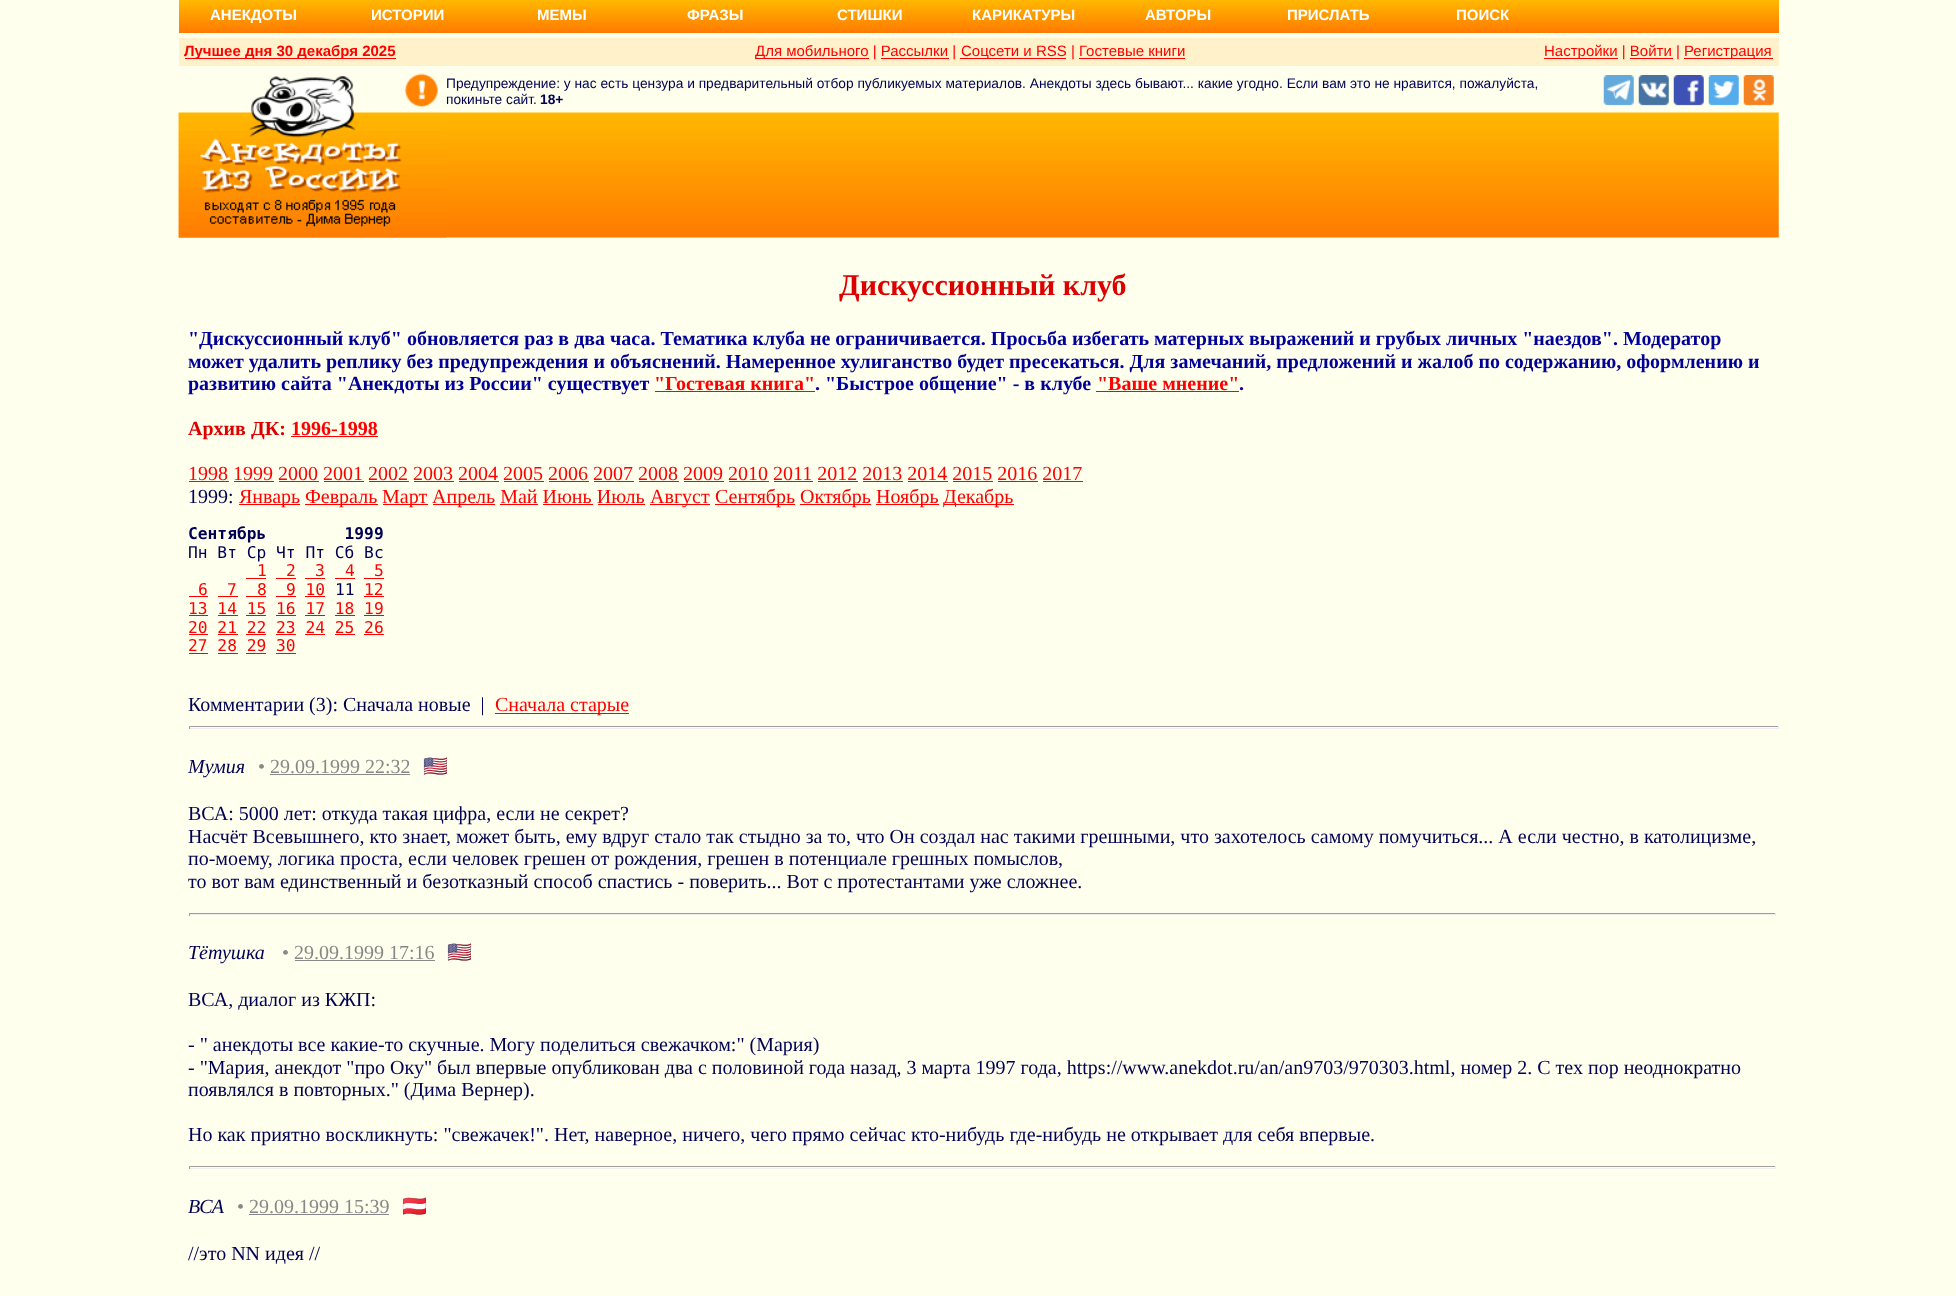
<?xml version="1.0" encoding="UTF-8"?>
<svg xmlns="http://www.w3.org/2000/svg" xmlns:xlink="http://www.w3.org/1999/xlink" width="1956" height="1296">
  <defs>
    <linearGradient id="g1" gradientUnits="userSpaceOnUse" x1="979" y1="0" x2="979" y2="33"><stop offset="0" stop-color="#ffb800" /><stop offset="1" stop-color="#ff7a00" /></linearGradient>
  </defs>
  <rect width="100%" height="100%" fill="#ffffee" />
  <rect x="179" width="1600" height="33" fill="url(#g1)" />
  <rect x="179" y="38" width="1600" height="28" fill="#fff2ca" />
  <rect x="185" y="58" width="211" height="1" fill="#ff0000" />
  <rect x="755" y="58" width="114" height="1" fill="#ff0000" />
  <rect x="960" y="58" width="106" height="1" fill="#ff0000" />
  <rect x="1544" y="58" width="74" height="1" fill="#ff0000" />
  <rect x="1684" y="58" width="89" height="1" fill="#ff0000" />
  <rect x="1630" y="58" width="43" height="1" fill="#ff0000" />
  <rect x="881" y="58" width="68" height="1" fill="#ff0000" />
  <rect x="1079" y="58" width="106" height="1" fill="#ff0000" />
  <image x="178" y="112" width="1601" height="126" xlink:href="image1.png" />
  <image x="178" y="73" width="269" height="165" xlink:href="image2.png" />
  <image x="1603" y="75" width="31" height="31" xlink:href="image3.png" />
  <image x="1638" y="75" width="31" height="31" xlink:href="image4.png" />
  <image x="1673" y="75" width="31" height="31" xlink:href="image5.png" />
  <image x="1708" y="75" width="31" height="31" xlink:href="image6.png" />
  <image x="1743" y="75" width="31" height="31" xlink:href="image7.png" />
  <rect x="655" y="391" width="160" height="1" fill="#ff0000" />
  <rect x="1096" y="391" width="143" height="1" fill="#ff0000" />
  <rect x="291" y="436" width="87" height="1" fill="#ff0000" />
  <rect x="189" y="481" width="40" height="1" fill="#ff0000" />
  <rect x="234" y="481" width="40" height="1" fill="#ff0000" />
  <rect x="279" y="481" width="40" height="1" fill="#ff0000" />
  <rect x="324" y="481" width="40" height="1" fill="#ff0000" />
  <rect x="369" y="481" width="40" height="1" fill="#ff0000" />
  <rect x="414" y="481" width="40" height="1" fill="#ff0000" />
  <rect x="459" y="481" width="40" height="1" fill="#ff0000" />
  <rect x="504" y="481" width="40" height="1" fill="#ff0000" />
  <rect x="549" y="481" width="40" height="1" fill="#ff0000" />
  <rect x="594" y="481" width="40" height="1" fill="#ff0000" />
  <rect x="639" y="481" width="40" height="1" fill="#ff0000" />
  <rect x="684" y="481" width="40" height="1" fill="#ff0000" />
  <rect x="729" y="481" width="40" height="1" fill="#ff0000" />
  <rect x="774" y="481" width="39" height="1" fill="#ff0000" />
  <rect x="818" y="481" width="40" height="1" fill="#ff0000" />
  <rect x="863" y="481" width="40" height="1" fill="#ff0000" />
  <rect x="908" y="481" width="40" height="1" fill="#ff0000" />
  <rect x="953" y="481" width="40" height="1" fill="#ff0000" />
  <rect x="998" y="481" width="40" height="1" fill="#ff0000" />
  <rect x="1043" y="481" width="40" height="1" fill="#ff0000" />
  <rect x="239" y="504" width="61" height="1" fill="#ff0000" />
  <rect x="305" y="504" width="73" height="1" fill="#ff0000" />
  <rect x="383" y="504" width="45" height="1" fill="#ff0000" />
  <rect x="433" y="504" width="62" height="1" fill="#ff0000" />
  <rect x="650" y="504" width="60" height="1" fill="#ff0000" />
  <rect x="715" y="504" width="80" height="1" fill="#ff0000" />
  <rect x="800" y="504" width="71" height="1" fill="#ff0000" />
  <rect x="876" y="504" width="63" height="1" fill="#ff0000" />
  <rect x="944" y="504" width="70" height="1" fill="#ff0000" />
  <rect x="500" y="504" width="38" height="1" fill="#ff0000" />
  <rect x="543" y="504" width="50" height="1" fill="#ff0000" />
  <rect x="598" y="504" width="47" height="1" fill="#ff0000" />
  <rect x="246" y="578" width="20" height="1" fill="#ff0000" />
  <rect x="276" y="578" width="20" height="1" fill="#ff0000" />
  <rect x="305" y="578" width="20" height="1" fill="#ff0000" />
  <rect x="335" y="578" width="20" height="1" fill="#ff0000" />
  <rect x="364" y="578" width="20" height="1" fill="#ff0000" />
  <rect x="189" y="596" width="19" height="1" fill="#ff0000" />
  <rect x="218" y="596" width="20" height="1" fill="#ff0000" />
  <rect x="246" y="596" width="20" height="1" fill="#ff0000" />
  <rect x="276" y="596" width="20" height="1" fill="#ff0000" />
  <rect x="364" y="596" width="20" height="1" fill="#ff0000" />
  <rect x="305" y="596" width="20" height="1" fill="#ff0000" />
  <rect x="189" y="615" width="19" height="1" fill="#ff0000" />
  <rect x="218" y="615" width="20" height="1" fill="#ff0000" />
  <rect x="246" y="615" width="20" height="1" fill="#ff0000" />
  <rect x="276" y="615" width="20" height="1" fill="#ff0000" />
  <rect x="305" y="615" width="20" height="1" fill="#ff0000" />
  <rect x="335" y="615" width="20" height="1" fill="#ff0000" />
  <rect x="364" y="615" width="20" height="1" fill="#ff0000" />
  <rect x="189" y="634" width="19" height="1" fill="#ff0000" />
  <rect x="218" y="634" width="20" height="1" fill="#ff0000" />
  <rect x="246" y="634" width="20" height="1" fill="#ff0000" />
  <rect x="276" y="634" width="20" height="1" fill="#ff0000" />
  <rect x="305" y="634" width="20" height="1" fill="#ff0000" />
  <rect x="335" y="634" width="20" height="1" fill="#ff0000" />
  <rect x="364" y="634" width="20" height="1" fill="#ff0000" />
  <rect x="189" y="653" width="19" height="1" fill="#ff0000" />
  <rect x="218" y="653" width="20" height="1" fill="#ff0000" />
  <rect x="246" y="653" width="20" height="1" fill="#ff0000" />
  <rect x="276" y="653" width="20" height="1" fill="#ff0000" />
  <rect x="495" y="713" width="134" height="1" fill="#ff0000" />
  <rect x="189" y="726" width="1590" height="1" fill="#9f9f9f" />
  <rect x="1778" y="726" width="1" height="3" fill="#eeeeee" />
  <rect x="189" y="728" width="1590" height="1" fill="#eeeeee" />
  <rect x="189" y="726" width="1" height="3" fill="#9f9f9f" />
  <rect x="270" y="774" width="140" height="1" fill="#888888" />
  <rect x="189" y="913" width="1587" height="1" fill="#9f9f9f" />
  <rect x="1775" y="913" width="1" height="3" fill="#eeeeee" />
  <rect x="189" y="914" width="1587" height="1" fill="#eeeeee" />
  <rect x="189" y="913" width="1" height="3" fill="#9f9f9f" />
  <rect x="295" y="960" width="140" height="1" fill="#888888" />
  <rect x="189" y="1166" width="1587" height="1" fill="#9f9f9f" />
  <rect x="1775" y="1166" width="1" height="3" fill="#eeeeee" />
  <rect x="189" y="1168" width="1587" height="1" fill="#eeeeee" />
  <rect x="189" y="1166" width="1" height="3" fill="#9f9f9f" />
  <rect x="249" y="1214" width="140" height="1" fill="#888888" />
  <text x="210" y="20" style="font-family: Liberation Sans; font-size: 15px; font-weight: bold; fill: #ffffff">АНЕКДОТЫ</text>
  <text x="371" y="20" style="font-family: Liberation Sans; font-size: 15px; font-weight: bold; fill: #ffffff">ИСТОРИИ</text>
  <text x="537" y="20" style="font-family: Liberation Sans; font-size: 15px; font-weight: bold; fill: #ffffff">МЕМЫ</text>
  <text x="687" y="20" style="font-family: Liberation Sans; font-size: 15px; font-weight: bold; fill: #ffffff">ФРАЗЫ</text>
  <text x="837" y="20" style="font-family: Liberation Sans; font-size: 15px; font-weight: bold; fill: #ffffff">СТИШКИ</text>
  <text x="972" y="20" style="font-family: Liberation Sans; font-size: 15px; font-weight: bold; fill: #ffffff">КАРИКАТУРЫ</text>
  <text x="1145" y="20" style="font-family: Liberation Sans; font-size: 15px; font-weight: bold; fill: #ffffff">АВТОРЫ</text>
  <text x="1287" y="20" style="font-family: Liberation Sans; font-size: 15px; font-weight: bold; fill: #ffffff">ПРИСЛАТЬ</text>
  <text x="1456" y="20" style="font-family: Liberation Sans; font-size: 15px; font-weight: bold; fill: #ffffff">ПОИСК</text>
  <text x="184" y="56" style="font-family: Liberation Sans; font-size: 15px; font-weight: bold; fill: #ff0000">Лучшее дня 30 декабря 2025</text>
  <text x="755" y="56" style="font-family: Liberation Sans; font-size: 15px; fill: #ff0000">Для мобильного | Рассылки |</text>
  <text x="961" y="56" style="font-family: Liberation Sans; font-size: 15px; fill: #ff0000">Соцсети и RSS | Гостевые книги</text>
  <text x="1544" y="56" style="font-family: Liberation Sans; font-size: 15px; fill: #ff0000">Настройки | Войти |</text>
  <text x="1684" y="56" style="font-family: Liberation Sans; font-size: 15px; fill: #ff0000">Регистрация</text>
  <text x="446" y="88" style="font-family: Liberation Sans; font-size: 13.75px; fill: #000055">Предупреждение: у нас есть цензура и предварительный отбор публикуемых материалов. Анекдоты здесь бывают... какие угодно. Если вам это не нравится, пожалуйста,</text>
  <text x="446" y="104" style="font-family: Liberation Sans; font-size: 13.75px; fill: #000055">покиньте сайт.</text>
  <text x="540" y="104" style="font-family: Liberation Sans; font-size: 13.75px; font-weight: bold; fill: #000055">18+</text>
  <text x="839" y="295" style="font-family: Liberation Serif; font-size: 30px; font-weight: bold; fill: #dd0000">Дискуссионный клуб</text>
  <text x="188" y="345" style="font-family: Liberation Serif; font-size: 20px; font-weight: bold; fill: #000099">"Дискуссионный клуб" обновляется раз в два часа. Тематика клуба не ограничивается. Просьба избегать матерных выражений и грубых личных "наездов". Модератор</text>
  <text x="188" y="368" style="font-family: Liberation Serif; font-size: 20px; font-weight: bold; fill: #000099">может удалить реплику без предупреждения и объяснений. Намеренное хулиганство будет пресекаться. Для замечаний, предложений и жалоб по содержанию, оформлению и</text>
  <text x="188" y="390" style="font-family: Liberation Serif; font-size: 20px; font-weight: bold; fill: #000099">развитию сайта "Анекдоты из России" существует</text>
  <text x="654" y="390" style="font-family: Liberation Serif; font-size: 20px; font-weight: bold; fill: #ff0000">"Гостевая книга"</text>
  <text x="815" y="390" style="font-family: Liberation Serif; font-size: 20px; font-weight: bold; fill: #000099">. "Быстрое общение" - в клубе</text>
  <text x="1097" y="390" style="font-family: Liberation Serif; font-size: 20px; font-weight: bold; fill: #ff0000">"Ваше мнение"</text>
  <text x="1239" y="390" style="font-family: Liberation Serif; font-size: 20px; font-weight: bold; fill: #000099">.</text>
  <text x="188" y="435" style="font-family: Liberation Serif; font-size: 20px; font-weight: bold; fill: #dd0000">Архив ДК:</text>
  <text x="291" y="435" style="font-family: Liberation Serif; font-size: 20px; font-weight: bold; fill: #ff0000">1996-1998</text>
  <text x="188" y="480" style="font-family: Liberation Serif; font-size: 20px; fill: #ff0000">1998 1999 2000 2001 2002 2003 2004 2005 2006 2007 2008 2009 2010 2011 2012 2013 2014 2015 2016 2017</text>
  <text x="188" y="503" style="font-family: Liberation Serif; font-size: 20px; fill: #000055">1999:</text>
  <text x="239" y="503" style="font-family: Liberation Serif; font-size: 20px; fill: #ff0000">Январь</text>
  <text x="305" y="503" style="font-family: Liberation Serif; font-size: 20px; fill: #ff0000">Февраль</text>
  <text x="382" y="503" style="font-family: Liberation Serif; font-size: 20px; fill: #ff0000">Март</text>
  <text x="432" y="503" style="font-family: Liberation Serif; font-size: 20px; fill: #ff0000">Апрель Май Июнь Июль</text>
  <text x="650" y="503" style="font-family: Liberation Serif; font-size: 20px; fill: #ff0000">Август</text>
  <text x="715" y="503" style="font-family: Liberation Serif; font-size: 20px; fill: #ff0000">Сентябрь</text>
  <text x="800" y="503" style="font-family: Liberation Serif; font-size: 20px; fill: #ff0000">Октябрь</text>
  <text x="876" y="503" style="font-family: Liberation Serif; font-size: 20px; fill: #ff0000">Ноябрь</text>
  <text x="943" y="503" style="font-family: Liberation Serif; font-size: 20px; fill: #ff0000">Декабрь</text>
  <text x="188" y="539" style="font-family: DejaVu Sans Mono; font-size: 16.25px; font-weight: bold; fill: #000055" xml:space="preserve">Сентябрь        1999</text>
  <text x="188" y="558" style="font-family: DejaVu Sans Mono; font-size: 16.25px; fill: #000055">Пн Вт Ср Чт Пт Сб Вс</text>
  <text x="257" y="576" style="font-family: DejaVu Sans Mono; font-size: 16.25px; fill: #ff0000">1</text>
  <text x="286" y="576" style="font-family: DejaVu Sans Mono; font-size: 16.25px; fill: #ff0000">2</text>
  <text x="315" y="576" style="font-family: DejaVu Sans Mono; font-size: 16.25px; fill: #ff0000">3</text>
  <text x="345" y="576" style="font-family: DejaVu Sans Mono; font-size: 16.25px; fill: #ff0000">4</text>
  <text x="374" y="576" style="font-family: DejaVu Sans Mono; font-size: 16.25px; fill: #ff0000">5</text>
  <text x="198" y="595" style="font-family: DejaVu Sans Mono; font-size: 16.25px; fill: #ff0000">6</text>
  <text x="227" y="595" style="font-family: DejaVu Sans Mono; font-size: 16.25px; fill: #ff0000">7</text>
  <text x="257" y="595" style="font-family: DejaVu Sans Mono; font-size: 16.25px; fill: #ff0000">8</text>
  <text x="286" y="595" style="font-family: DejaVu Sans Mono; font-size: 16.25px; fill: #ff0000">9 10</text>
  <text x="335" y="595" style="font-family: DejaVu Sans Mono; font-size: 16.25px; fill: #000055">11</text>
  <text x="364" y="595" style="font-family: DejaVu Sans Mono; font-size: 16.25px; fill: #ff0000">12</text>
  <text x="188" y="614" style="font-family: DejaVu Sans Mono; font-size: 16.25px; fill: #ff0000">13 14 15 16 17 18 19</text>
  <text x="188" y="633" style="font-family: DejaVu Sans Mono; font-size: 16.25px; fill: #ff0000">20 21 22 23 24 25 26</text>
  <text x="188" y="651" style="font-family: DejaVu Sans Mono; font-size: 16.25px; fill: #ff0000">27 28 29 30</text>
  <text x="188" y="711" style="font-family: Liberation Serif; font-size: 20px; fill: #000055" xml:space="preserve">Комментарии (3): Сначала новые  |</text>
  <text x="495" y="711" style="font-family: Liberation Serif; font-size: 20px; fill: #ff0000">Сначала старые</text>
  <text x="188" y="773" style="font-family: Liberation Serif; font-size: 20px; font-style: italic; fill: #000055">Мумия</text>
  <text x="258" y="773" style="font-family: Liberation Serif; font-size: 20px; fill: #888888">• 29.09.1999 22:32</text>
  <text x="423" y="773" style="font-family: Noto Color Emoji; font-size: 20px; fill: #000055">🇺🇸</text>
  <text x="188" y="820" style="font-family: Liberation Serif; font-size: 20px; fill: #000055">ВСА: 5000 лет: откуда такая цифра, если не секрет?</text>
  <text x="188" y="843" style="font-family: Liberation Serif; font-size: 20px; fill: #000055">Насчёт Всевышнего, кто знает, может быть, ему вдруг стало так стыдно за то, что Он создал нас такими грешными, что захотелось самому помучиться... А если честно, в католицизме,</text>
  <text x="188" y="865" style="font-family: Liberation Serif; font-size: 20px; fill: #000055">по-моему, логика проста, если человек грешен от рождения, грешен в потенциале грешных помыслов,</text>
  <text x="188" y="888" style="font-family: Liberation Serif; font-size: 20px; fill: #000055">то вот вам единственный и безотказный способ спастись - поверить... Вот с протестантами уже сложнее.</text>
  <text x="188" y="959" style="font-family: Liberation Serif; font-size: 20px; font-style: italic; fill: #000055">Тётушка</text>
  <text x="282" y="959" style="font-family: Liberation Serif; font-size: 20px; fill: #888888">• 29.09.1999 17:16</text>
  <text x="447" y="959" style="font-family: Noto Color Emoji; font-size: 20px; fill: #000055">🇺🇸</text>
  <text x="188" y="1006" style="font-family: Liberation Serif; font-size: 20px; fill: #000055">ВСА, диалог из КЖП:</text>
  <text x="188" y="1051" style="font-family: Liberation Serif; font-size: 20px; fill: #000055">- " анекдоты все какие-то скучные. Могу поделиться свежачком:" (Мария)</text>
  <text x="188" y="1074" style="font-family: Liberation Serif; font-size: 20px; fill: #000055">- "Мария, анекдот "про Оку" был впервые опубликован два с половиной года назад, 3 марта 1997 года, https://www.anekdot.ru/an/an9703/970303.html, номер 2. С тех пор неоднократно</text>
  <text x="188" y="1096" style="font-family: Liberation Serif; font-size: 20px; fill: #000055">появлялся в повторных." (Дима Вернер).</text>
  <text x="188" y="1141" style="font-family: Liberation Serif; font-size: 20px; fill: #000055">Но как приятно воскликнуть: "свежачек!". Нет, наверное, ничего, чего прямо сейчас кто-нибудь где-нибудь не открывает для себя впервые.</text>
  <text x="188" y="1213" style="font-family: Liberation Serif; font-size: 20px; font-style: italic; fill: #000055">ВСА</text>
  <text x="237" y="1213" style="font-family: Liberation Serif; font-size: 20px; fill: #888888">• 29.09.1999 15:39</text>
  <text x="402" y="1213" style="font-family: Noto Color Emoji; font-size: 20px; fill: #000055">🇦🇹</text>
  <text x="188" y="1260" style="font-family: Liberation Serif; font-size: 20px; fill: #000055">//это NN идея //</text>
</svg>
